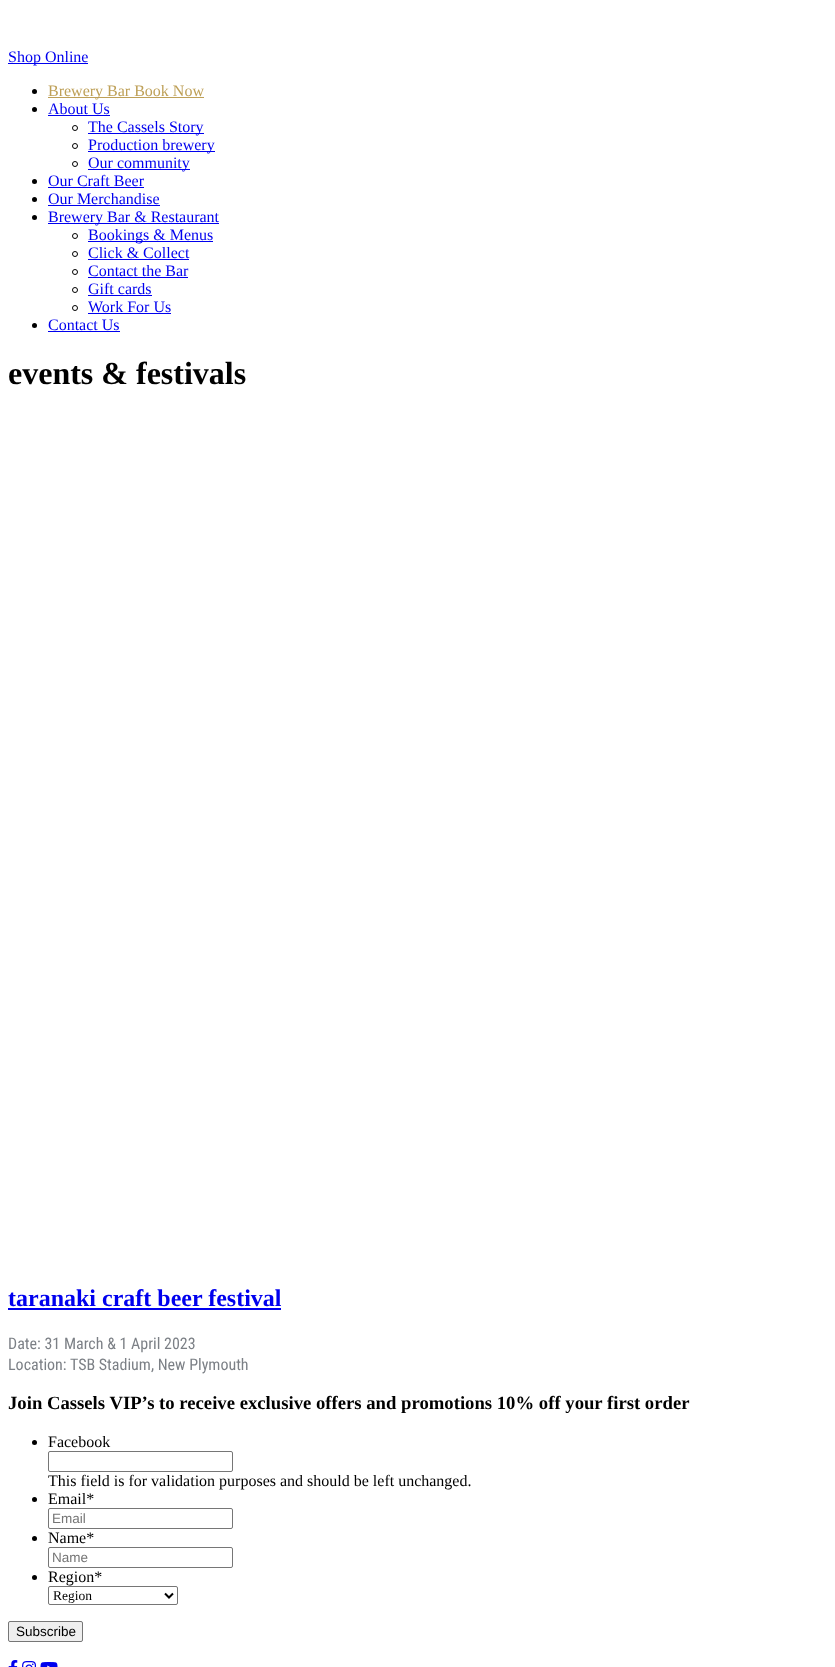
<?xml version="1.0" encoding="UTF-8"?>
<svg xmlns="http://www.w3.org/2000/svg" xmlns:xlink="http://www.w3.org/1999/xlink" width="835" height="1667">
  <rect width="100%" height="100%" fill="#ffffff" />
  <rect x="8" y="63" width="80" height="1" fill="#0000ee" />
  <circle cx="34.5" cy="91.5" r="2.5" fill="#000000" />
  <rect x="48" y="97" width="156" height="1" fill="#bea058" />
  <circle cx="34.5" cy="109.5" r="2.5" fill="#000000" />
  <rect x="48" y="115" width="62" height="1" fill="#0000ee" />
  <circle cx="75" cy="128" r="2.5" fill="none" stroke="#000000" />
  <rect x="88" y="133" width="116" height="1" fill="#0000ee" />
  <circle cx="75" cy="146" r="2.5" fill="none" stroke="#000000" />
  <rect x="88" y="151" width="127" height="1" fill="#0000ee" />
  <circle cx="75" cy="164" r="2.5" fill="none" stroke="#000000" />
  <rect x="88" y="169" width="102" height="1" fill="#0000ee" />
  <circle cx="34.5" cy="181.5" r="2.5" fill="#000000" />
  <rect x="48" y="187" width="96" height="1" fill="#0000ee" />
  <circle cx="34.5" cy="199.5" r="2.5" fill="#000000" />
  <rect x="48" y="205" width="112" height="1" fill="#0000ee" />
  <circle cx="34.5" cy="217.5" r="2.5" fill="#000000" />
  <rect x="48" y="223" width="171" height="1" fill="#0000ee" />
  <circle cx="75" cy="236" r="2.5" fill="none" stroke="#000000" />
  <rect x="88" y="241" width="125" height="1" fill="#0000ee" />
  <circle cx="75" cy="254" r="2.5" fill="none" stroke="#000000" />
  <rect x="88" y="259" width="101" height="1" fill="#0000ee" />
  <circle cx="75" cy="272" r="2.5" fill="none" stroke="#000000" />
  <rect x="88" y="277" width="100" height="1" fill="#0000ee" />
  <circle cx="75" cy="290" r="2.5" fill="none" stroke="#000000" />
  <rect x="88" y="295" width="64" height="1" fill="#0000ee" />
  <circle cx="75" cy="308" r="2.5" fill="none" stroke="#000000" />
  <rect x="88" y="313" width="83" height="1" fill="#0000ee" />
  <circle cx="34.5" cy="325.5" r="2.5" fill="#000000" />
  <rect x="48" y="331" width="72" height="1" fill="#0000ee" />
  <rect x="8" y="1308" width="273" height="2" fill="#0000ee" />
  <circle cx="34.5" cy="1442.5" r="2.5" fill="#000000" />
  <rect x="48.5" y="1451.5" width="184" height="20" rx="1.5" fill="none" stroke="#767676" />
  <circle cx="34.5" cy="1499.5" r="2.5" fill="#000000" />
  <rect x="48.5" y="1508.5" width="184" height="20" rx="1.5" fill="none" stroke="#767676" />
  <circle cx="34.5" cy="1538.5" r="2.5" fill="#000000" />
  <rect x="48.5" y="1547.5" width="184" height="20" rx="1.5" fill="none" stroke="#767676" />
  <circle cx="34.5" cy="1577.5" r="2.5" fill="#000000" />
  <rect x="48.5" y="1586.5" width="129" height="18" rx="1.5" fill="none" stroke="#767676" />
  <path d="M 165 1593.5 l 4 4 l 4 -4" fill="none" stroke="#000000" stroke-width="2" />
  <rect x="8.5" y="1621.5" width="74" height="20" rx="1.5" fill="#efefef" stroke="#767676" />
  <image x="8" y="1660" width="10" height="7" xlink:href="image1.png" />
  <image x="22" y="1661" width="14" height="6" xlink:href="image2.png" />
  <image x="40" y="1662" width="18" height="5" xlink:href="image3.png" />
  <text x="8" y="62" style="font-family: Liberation Serif; font-size: 16px; fill: #0000ee">Shop Online</text>
  <text x="48" y="96" style="font-family: Liberation Serif; font-size: 16px; fill: #bea058">Brewery Bar Book Now</text>
  <text x="48" y="114" style="font-family: Liberation Serif; font-size: 16px; fill: #0000ee">About Us</text>
  <text x="88" y="132" style="font-family: Liberation Serif; font-size: 16px; fill: #0000ee">The Cassels Story</text>
  <text x="88" y="150" style="font-family: Liberation Serif; font-size: 16px; fill: #0000ee">Production brewery</text>
  <text x="88" y="168" style="font-family: Liberation Serif; font-size: 16px; fill: #0000ee">Our community</text>
  <text x="48" y="186" style="font-family: Liberation Serif; font-size: 16px; fill: #0000ee">Our Craft Beer</text>
  <text x="48" y="204" style="font-family: Liberation Serif; font-size: 16px; fill: #0000ee">Our Merchandise</text>
  <text x="48" y="222" style="font-family: Liberation Serif; font-size: 16px; fill: #0000ee">Brewery Bar &amp; Restaurant</text>
  <text x="88" y="240" style="font-family: Liberation Serif; font-size: 16px; fill: #0000ee">Bookings &amp; Menus</text>
  <text x="88" y="258" style="font-family: Liberation Serif; font-size: 16px; fill: #0000ee">Click &amp; Collect</text>
  <text x="88" y="276" style="font-family: Liberation Serif; font-size: 16px; fill: #0000ee">Contact the Bar</text>
  <text x="88" y="294" style="font-family: Liberation Serif; font-size: 16px; fill: #0000ee">Gift cards</text>
  <text x="88" y="312" style="font-family: Liberation Serif; font-size: 16px; fill: #0000ee">Work For Us</text>
  <text x="48" y="330" style="font-family: Liberation Serif; font-size: 16px; fill: #0000ee">Contact Us</text>
  <text x="8" y="384" style="font-family: Liberation Serif; font-size: 32px; font-weight: bold; fill: #000000">events &amp; festivals</text>
  <text x="8" y="1306" style="font-family: Liberation Serif; font-size: 24px; font-weight: bold; fill: #0000ee">taranaki craft beer festival</text>
  <text x="8" y="1349" style="font-family: Roboto Condensed; font-size: 16px; fill: #7c8086">Date: 31 March &amp; 1 April 2023</text>
  <text x="8" y="1370" style="font-family: Roboto Condensed; font-size: 16px; fill: #7c8086">Location: TSB Stadium, New Plymouth</text>
  <text x="8" y="1409" style="font-family: Liberation Serif; font-size: 18.7px; font-weight: bold; fill: #000000">Join Cassels VIP’s to receive exclusive offers and promotions 10% off your first order</text>
  <text x="48" y="1447" style="font-family: Liberation Serif; font-size: 16px; fill: #000000">Facebook</text>
  <text x="48" y="1486" style="font-family: Liberation Serif; font-size: 16px; fill: #000000">This field is for validation purposes and should be left unchanged.</text>
  <text x="48" y="1504" style="font-family: Liberation Serif; font-size: 16px; fill: #000000">Email*</text>
  <text x="52" y="1523" style="font-family: Liberation Sans; font-size: 13.5px; fill: #757575">Email</text>
  <text x="48" y="1543" style="font-family: Liberation Serif; font-size: 16px; fill: #000000">Name*</text>
  <text x="52" y="1562" style="font-family: Liberation Sans; font-size: 13.5px; fill: #757575">Name</text>
  <text x="48" y="1582" style="font-family: Liberation Serif; font-size: 16px; fill: #000000">Region*</text>
  <text x="53" y="1600" style="font-family: Liberation Serif; font-size: 13.5px; fill: #000000">Region</text>
  <text x="16" y="1636" style="font-family: Liberation Sans; font-size: 13.5px; fill: #000000">Subscribe</text>
</svg>
